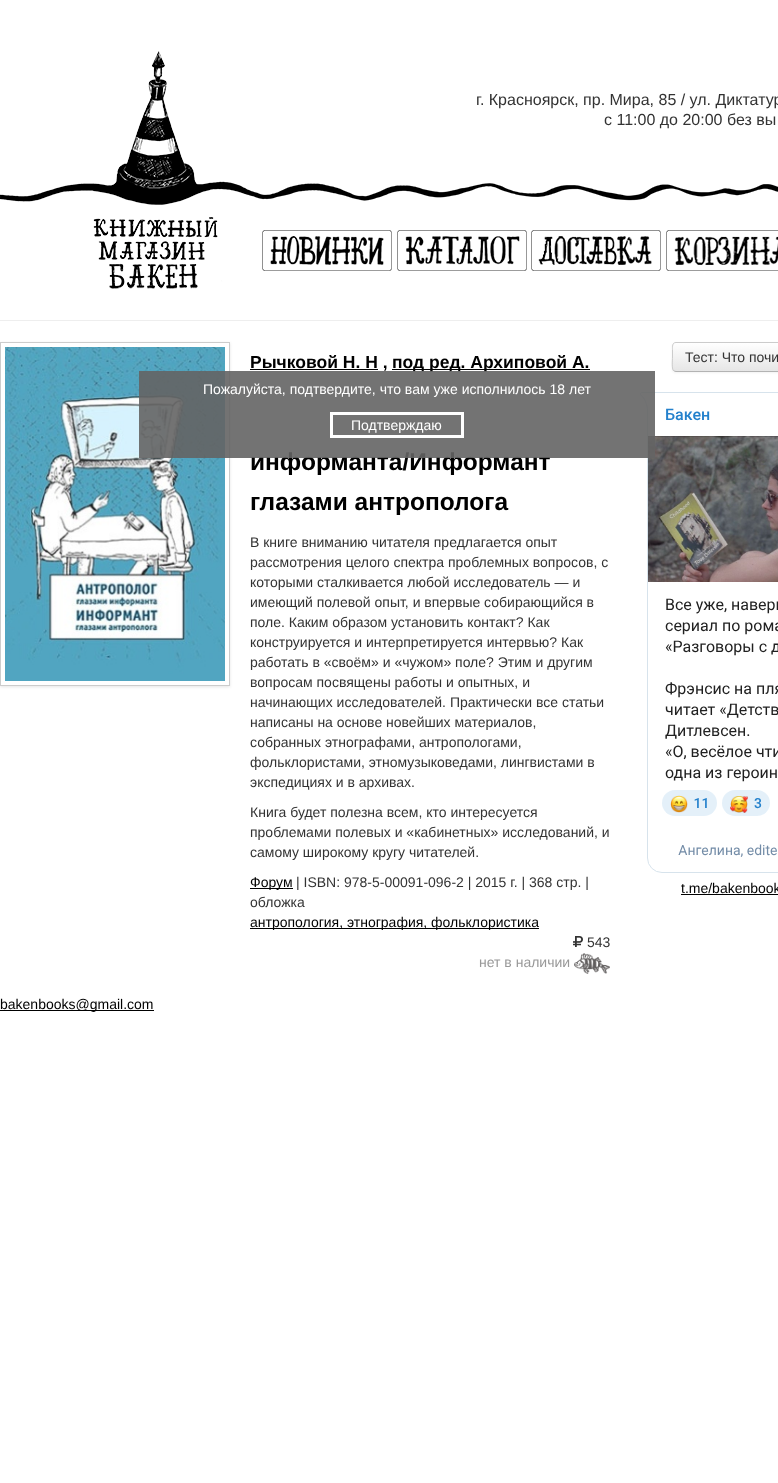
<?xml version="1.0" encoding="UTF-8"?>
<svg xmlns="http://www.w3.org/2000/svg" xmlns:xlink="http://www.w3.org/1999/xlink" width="778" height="1483">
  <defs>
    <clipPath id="clip1"><path d="M 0 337 h 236 v 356 h -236 z m 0 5 h 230 v 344 h -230 z" clip-rule="evenodd" /></clipPath>
    <clipPath id="clip2"><rect x="672" y="342" width="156" height="30" rx="4" /></clipPath>
    <linearGradient id="g1" gradientUnits="userSpaceOnUse" x1="750" y1="343" x2="750" y2="371"><stop offset="0" stop-color="#ffffff" /><stop offset="1" stop-color="#e6e6e6" /></linearGradient>
  </defs>
  <rect width="100%" height="100%" fill="#ffffff" />
  <image x="0" y="51" width="778" height="238" xlink:href="image1.png" />
  <image x="262" y="230" width="130" height="41" xlink:href="image2.png" />
  <image x="397" y="230" width="130" height="41" xlink:href="image3.png" />
  <image x="531" y="230" width="130" height="41" xlink:href="image4.png" />
  <image x="666" y="230" width="112" height="41" xlink:href="image5.png" />
  <rect y="320" width="778" height="1" fill="#eeeeee" />
  <g clip-path="url(#clip1)">
    <rect y="343" width="230" height="344" fill="#000000" fill-opacity="0.1" filter="blur(1.5px)" />
  </g>
  <rect x="0.5" y="342.5" width="229" height="343" fill="none" stroke="#cccccc" />
  <image x="5" y="347" width="220" height="334" xlink:href="image6.png" />
  <rect x="250" y="369" width="128" height="1" fill="#000000" />
  <rect x="392" y="369" width="198" height="1" fill="#000000" />
  <rect x="250" y="389" width="18" height="1" fill="#000000" />
  <rect x="250" y="888" width="43" height="1" fill="#000000" />
  <rect x="250" y="928" width="289" height="1" fill="#000000" />
  <image x="573" y="936" width="10" height="11" xlink:href="image7.png" />
  <image x="574" y="953" width="36" height="21" xlink:href="image8.png" />
  <rect x="672" y="343" width="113" height="30" rx="4" fill="#000000" fill-opacity="0.05" filter="blur(1px)" />
  <g clip-path="url(#clip2)">
    <rect x="672" y="343" width="106" height="28" fill="url(#g1)" />
  </g>
  <path d="M 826.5 370.5 c -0.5 0.5 -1.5 1 -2.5 1 h -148 c -1 0 -2 -0.5 -2.5 -1" fill="none" stroke="#b3b3b3" />
  <path d="M 673.5 370.5 c -2 -2 -1 -10.5 -1 -13.5 v -7.5 c 0 -2.5 -0.5 -7 3.5 -7 h 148 c 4 0 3.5 4.5 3.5 7 v 7.5 c 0 3 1 11.5 -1 13.5" fill="none" stroke="#cccccc" />
  <image x="640" y="392" width="138" height="481" xlink:href="image9.png" />
  <rect x="681" y="894" width="97" height="1" fill="#000000" />
  <rect y="1010" width="154" height="1" fill="#000000" />
  <text x="476" y="105" style="font-family: Liberation Sans; font-size: 16px; fill: #333333">г. Красноярск, пр. Мира, 85 / ул. Диктатур</text>
  <text x="604" y="125" style="font-family: Liberation Sans; font-size: 16px; fill: #333333">с 11:00 до 20:00 без вы</text>
  <text x="250" y="368" style="font-family: Liberation Sans; font-size: 17.5px; font-weight: bold; fill: #000000">Рычковой Н. Н ,</text>
  <text x="392" y="368" style="font-family: Liberation Sans; font-size: 17.5px; font-weight: bold; fill: #000000">под ред. Архиповой А.</text>
  <text x="250" y="470" style="font-family: Liberation Sans; font-size: 24.5px; font-weight: bold; fill: #000000">информанта/Информант</text>
  <text x="250" y="510" style="font-family: Liberation Sans; font-size: 24.5px; font-weight: bold; fill: #000000">глазами антрополога</text>
  <text x="250" y="547" style="font-family: Liberation Sans; font-size: 14px; fill: #333333">В книге вниманию читателя предлагается опыт</text>
  <text x="250" y="567" style="font-family: Liberation Sans; font-size: 14px; fill: #333333">рассмотрения целого спектра проблемных вопросов, с</text>
  <text x="250" y="587" style="font-family: Liberation Sans; font-size: 14px; fill: #333333">которыми сталкивается любой исследователь — и</text>
  <text x="250" y="607" style="font-family: Liberation Sans; font-size: 14px; fill: #333333">имеющий полевой опыт, и впервые собирающийся в</text>
  <text x="250" y="627" style="font-family: Liberation Sans; font-size: 14px; fill: #333333">поле. Каким образом установить контакт? Как</text>
  <text x="250" y="647" style="font-family: Liberation Sans; font-size: 14px; fill: #333333">конструируется и интерпретируется интервью? Как</text>
  <text x="250" y="667" style="font-family: Liberation Sans; font-size: 14px; fill: #333333">работать в «своём» и «чужом» поле? Этим и другим</text>
  <text x="250" y="687" style="font-family: Liberation Sans; font-size: 14px; fill: #333333">вопросам посвящены работы и опытных, и</text>
  <text x="250" y="707" style="font-family: Liberation Sans; font-size: 14px; fill: #333333">начинающих исследователей. Практически все статьи</text>
  <text x="250" y="727" style="font-family: Liberation Sans; font-size: 14px; fill: #333333">написаны на основе новейших материалов,</text>
  <text x="250" y="747" style="font-family: Liberation Sans; font-size: 14px; fill: #333333">собранных этнографами, антропологами,</text>
  <text x="250" y="767" style="font-family: Liberation Sans; font-size: 14px; fill: #333333">фольклористами, этномузыковедами, лингвистами в</text>
  <text x="250" y="787" style="font-family: Liberation Sans; font-size: 14px; fill: #333333">экспедициях и в архивах.</text>
  <text x="250" y="817" style="font-family: Liberation Sans; font-size: 14px; fill: #333333">Книга будет полезна всем, кто интересуется</text>
  <text x="250" y="837" style="font-family: Liberation Sans; font-size: 14px; fill: #333333">проблемами полевых и «кабинетных» исследований, и</text>
  <text x="250" y="857" style="font-family: Liberation Sans; font-size: 14px; fill: #333333">самому широкому кругу читателей.</text>
  <text x="250" y="887" style="font-family: Liberation Sans; font-size: 14px; fill: #000000">Форум</text>
  <text x="296" y="887" style="font-family: Liberation Sans; font-size: 14px; fill: #333333">| ISBN: 978-5-00091-096-2 | 2015 г. | 368 стр. |</text>
  <text x="250" y="907" style="font-family: Liberation Sans; font-size: 14px; fill: #333333">обложка</text>
  <text x="250" y="927" style="font-family: Liberation Sans; font-size: 14px; fill: #000000">антропология, этнография, фольклористика</text>
  <text x="587" y="947" style="font-family: Liberation Sans; font-size: 14px; fill: #333333">543</text>
  <text x="479" y="967" style="font-family: Liberation Sans; font-size: 14px; fill: #999999">нет в наличии</text>
  <text x="685" y="362" style="font-family: Liberation Sans; font-size: 14px; fill: #333333">Тест: Что почи</text>
  <text x="681" y="893" style="font-family: Liberation Sans; font-size: 14px; fill: #000000">t.me/bakenbook</text>
  <text x="0" y="1009" style="font-family: Liberation Sans; font-size: 14px; fill: #000000">bakenbooks@gmail.com</text>
  <rect x="139" y="371" width="516" height="87" fill="#646464" fill-opacity="0.9" />
  <text x="203" y="394" style="font-family: Liberation Sans; font-size: 14px; fill: #ffffff">Пожалуйста, подтвердите, что вам уже исполнилось 18 лет</text>
  <rect x="331.5" y="413.5" width="131" height="23" fill="none" stroke="#ffffff" stroke-width="3" />
  <text x="351" y="430" style="font-family: Liberation Sans; font-size: 14px; fill: #ffffff">Подтверждаю</text>
</svg>
